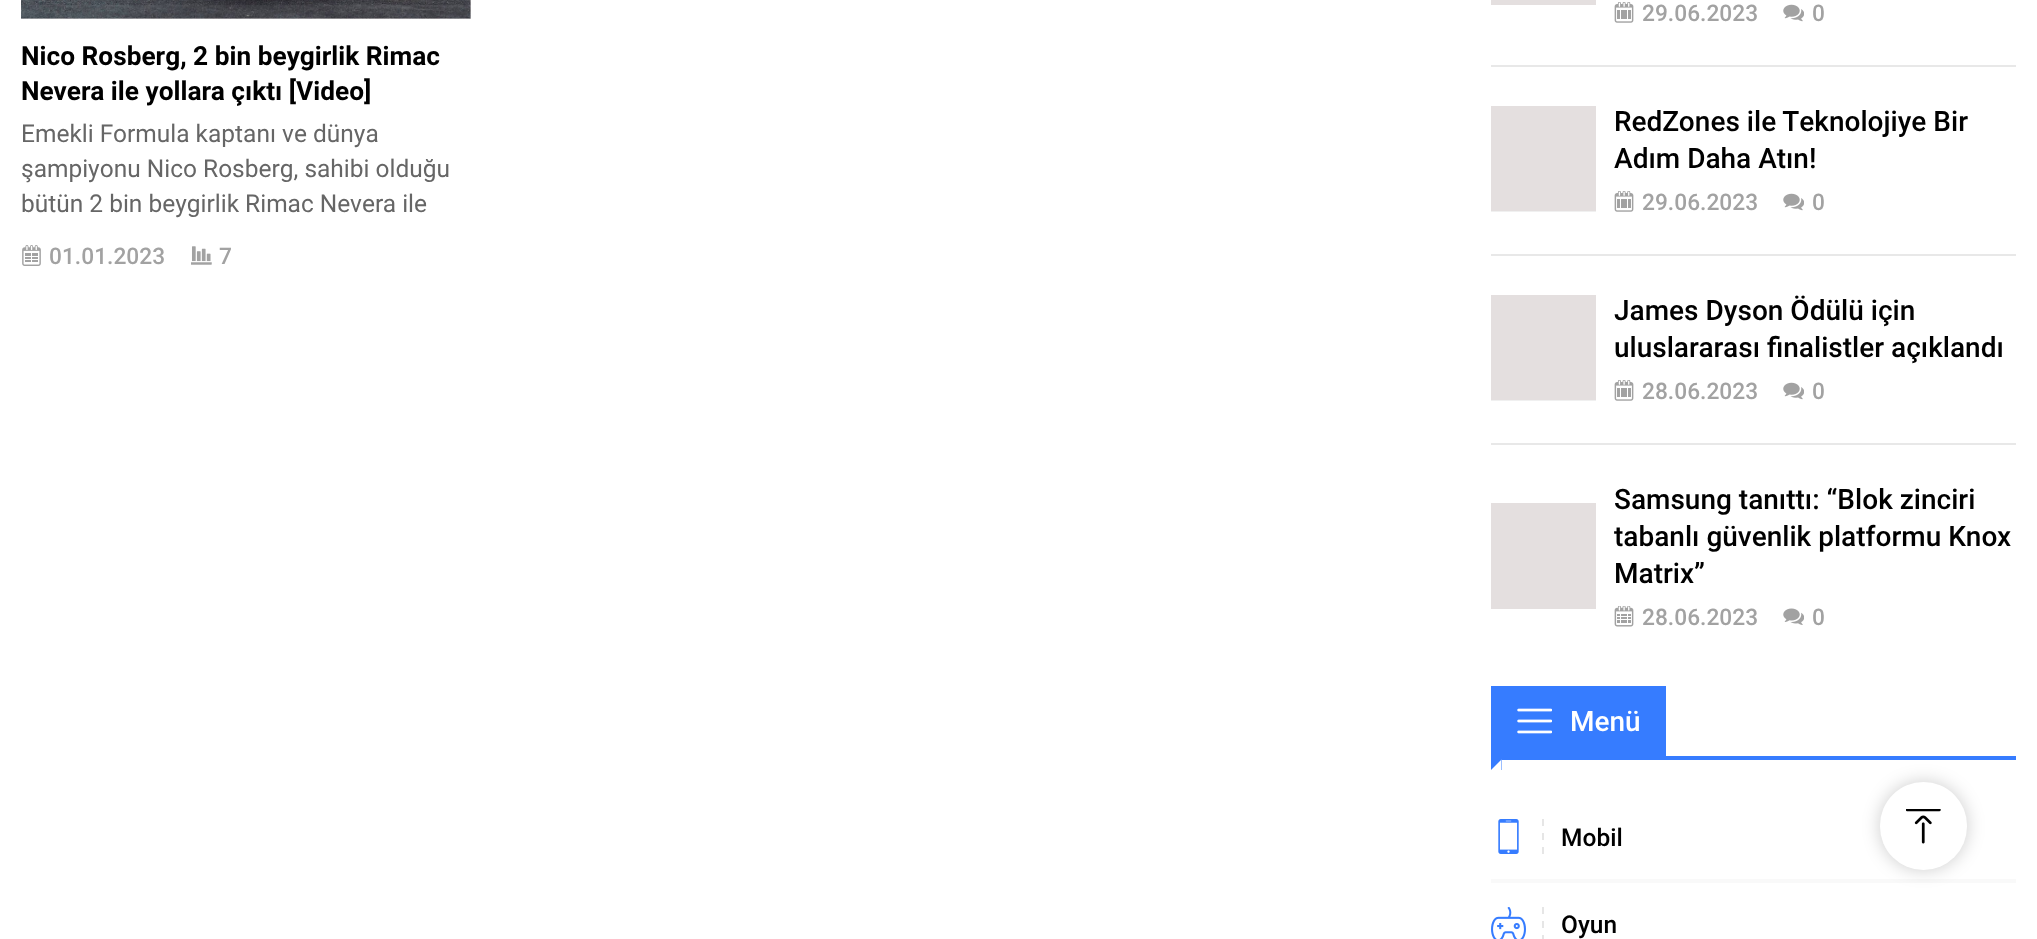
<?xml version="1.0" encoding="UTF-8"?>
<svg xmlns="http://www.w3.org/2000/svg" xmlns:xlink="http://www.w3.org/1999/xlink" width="2037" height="939">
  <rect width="100%" height="100%" fill="#ffffff" />
  <rect x="21" width="450" height="19" fill="#e4dfdf" />
  <image x="21" y="0" width="450" height="19" xlink:href="image1.png" />
  <image x="22" y="245" width="19" height="21" xlink:href="image2.png" />
  <image x="191" y="246" width="21" height="19" xlink:href="image3.png" />
  <rect x="1491" y="65" width="525" height="2" fill="#e8e8e8" />
  <rect x="1491" width="105" height="5" fill="#e4dfdf" />
  <image x="1614" y="2" width="20" height="21" xlink:href="image4.png" />
  <image x="1783" y="4" width="21" height="18" xlink:href="image5.png" />
  <rect x="1491" y="254" width="525" height="2" fill="#e8e8e8" />
  <rect x="1491" y="211" width="105" height="1" fill="#f0f0f0" />
  <rect x="1491" y="106" width="105" height="105" fill="#e4dfdf" />
  <image x="1614" y="191" width="20" height="21" xlink:href="image4.png" />
  <image x="1783" y="193" width="21" height="18" xlink:href="image5.png" />
  <rect x="1491" y="443" width="525" height="2" fill="#e8e8e8" />
  <rect x="1491" y="400" width="105" height="1" fill="#f0f0f0" />
  <rect x="1491" y="295" width="105" height="105" fill="#e4dfdf" />
  <image x="1614" y="380" width="20" height="21" xlink:href="image4.png" />
  <image x="1783" y="382" width="21" height="18" xlink:href="image5.png" />
  <rect x="1491" y="503" width="105" height="106" fill="#e4dfdf" />
  <image x="1614" y="606" width="20" height="21" xlink:href="image6.png" />
  <image x="1783" y="608" width="21" height="17" xlink:href="image7.png" />
  <rect x="1491" y="756" width="525" height="4" fill="#367cff" />
  <rect x="1491" y="686" width="175" height="70" fill="#367cff" />
  <image x="1517" y="708" width="35" height="26" xlink:href="image8.png" />
  <rect x="1491" y="760" width="11" height="10" fill="#367cff" />
  <path d="M 1501.5 770 h -10.5 l 10.5 -10.5 z" fill="#ffffff" />
  <image x="1498" y="819" width="21" height="35" xlink:href="image9.png" />
  <rect x="1542" y="847" width="2" height="7" fill="#e6e6e6" />
  <rect x="1542" y="833" width="2" height="7" fill="#e6e6e6" />
  <rect x="1542" y="819" width="2" height="7" fill="#e6e6e6" />
  <rect x="1491" y="879" width="525" height="4" fill="#f9f9f9" />
  <image x="1491" y="907" width="35" height="32" xlink:href="image10.png" />
  <rect x="1542" y="935" width="2" height="4" fill="#e6e6e6" />
  <rect x="1542" y="921" width="2" height="7" fill="#e6e6e6" />
  <rect x="1542" y="907" width="2" height="7" fill="#e6e6e6" />
  <rect x="1880" y="782" width="87" height="88" rx="43.5" fill="#000000" fill-opacity="0.2" filter="blur(9px)" />
  <rect x="1880" y="782" width="87" height="88" rx="43.5" fill="#ffffff" />
  <image x="1906" y="809" width="35" height="35" xlink:href="image11.png" />
  <text x="21" y="65" style="font-family: Roboto; font-size: 26.25px; font-weight: bold; fill: #000000">Nico Rosberg, 2 bin beygirlik Rimac</text>
  <text x="21" y="100" style="font-family: Roboto; font-size: 26.25px; font-weight: bold; fill: #000000">Nevera ile yollara çıktı [Video]</text>
  <text x="21" y="142" style="font-family: Roboto; font-size: 24.5px; fill: #666666">Emekli Formula kaptanı ve dünya</text>
  <text x="21" y="177" style="font-family: Roboto; font-size: 24.5px; fill: #666666">şampiyonu Nico Rosberg, sahibi olduğu</text>
  <text x="21" y="212" style="font-family: Roboto; font-size: 24.5px; fill: #666666">bütün 2 bin beygirlik Rimac Nevera ile</text>
  <text x="49" y="264" style="font-family: Roboto; font-size: 22.75px; font-weight: 500; fill: #a2a2a2">01.01.2023</text>
  <text x="219" y="264" style="font-family: Roboto; font-size: 22.75px; font-weight: 500; fill: #a2a2a2">7</text>
  <text x="1642" y="21" style="font-family: Roboto; font-size: 22.75px; font-weight: 500; fill: #a2a2a2">29.06.2023</text>
  <text x="1812" y="21" style="font-family: Roboto; font-size: 22.75px; font-weight: 500; fill: #a2a2a2">0</text>
  <text x="1614" y="131" style="font-family: Roboto; font-size: 28px; font-weight: 500; fill: #000000">RedZones ile Teknolojiye Bir</text>
  <text x="1614" y="168" style="font-family: Roboto; font-size: 28px; font-weight: 500; fill: #000000">Adım Daha Atın!</text>
  <text x="1642" y="210" style="font-family: Roboto; font-size: 22.75px; font-weight: 500; fill: #a2a2a2">29.06.2023</text>
  <text x="1812" y="210" style="font-family: Roboto; font-size: 22.75px; font-weight: 500; fill: #a2a2a2">0</text>
  <text x="1614" y="320" style="font-family: Roboto; font-size: 28px; font-weight: 500; fill: #000000">James Dyson Ödülü için</text>
  <text x="1614" y="357" style="font-family: Roboto; font-size: 28px; font-weight: 500; fill: #000000">uluslararası finalistler açıklandı</text>
  <text x="1642" y="399" style="font-family: Roboto; font-size: 22.75px; font-weight: 500; fill: #a2a2a2">28.06.2023</text>
  <text x="1812" y="399" style="font-family: Roboto; font-size: 22.75px; font-weight: 500; fill: #a2a2a2">0</text>
  <text x="1614" y="509" style="font-family: Roboto; font-size: 28px; font-weight: 500; fill: #000000">Samsung tanıttı: “Blok zinciri</text>
  <text x="1614" y="546" style="font-family: Roboto; font-size: 28px; font-weight: 500; fill: #000000">tabanlı güvenlik platformu Knox</text>
  <text x="1614" y="583" style="font-family: Roboto; font-size: 28px; font-weight: 500; fill: #000000">Matrix”</text>
  <text x="1642" y="625" style="font-family: Roboto; font-size: 22.75px; font-weight: 500; fill: #a2a2a2">28.06.2023</text>
  <text x="1812" y="625" style="font-family: Roboto; font-size: 22.75px; font-weight: 500; fill: #a2a2a2">0</text>
  <text x="1570" y="731" style="font-family: Roboto; font-size: 28px; font-weight: 500; fill: #ffffff">Menü</text>
  <text x="1561" y="846" style="font-family: Roboto; font-size: 24.5px; font-weight: 500; fill: #000000">Mobil</text>
  <text x="1561" y="933" style="font-family: Roboto; font-size: 24.5px; font-weight: 500; fill: #000000">Oyun</text>
</svg>
